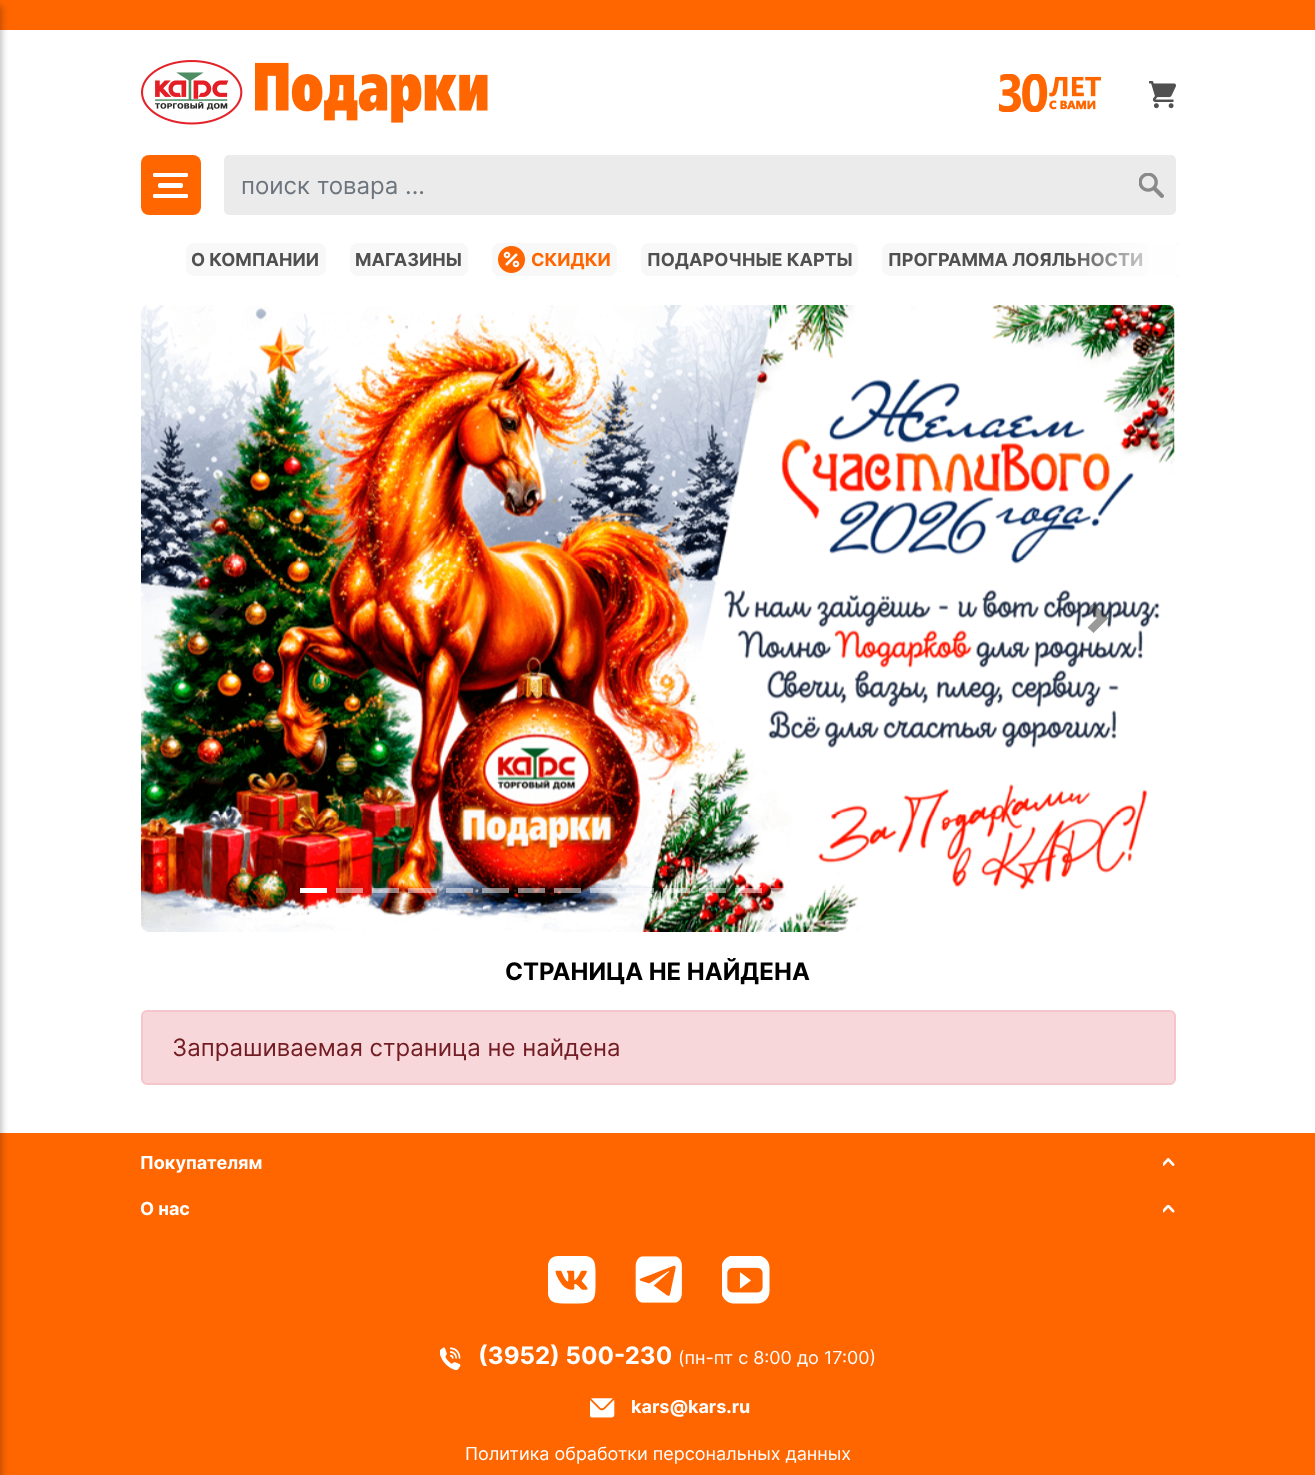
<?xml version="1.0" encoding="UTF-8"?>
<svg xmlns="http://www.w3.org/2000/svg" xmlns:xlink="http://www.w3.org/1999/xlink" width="1315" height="1475">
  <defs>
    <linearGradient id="g1" gradientUnits="userSpaceOnUse" x1="1071" y1="260" x2="1176" y2="260"><stop offset="0" stop-color="#fefefe" stop-opacity="0" /><stop offset="1" stop-color="#fefefe" /></linearGradient>
  </defs>
  <rect width="100%" height="100%" fill="#ffffff" />
  <rect width="1315" height="30" fill="#ff6600" />
  <rect y="1133" width="1315" height="342" fill="#ff6600" />
  <rect x="-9" y="6" width="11" height="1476" fill="#000000" fill-opacity="0.25" filter="blur(3px)" />
  <image x="141" y="60" width="102" height="65" xlink:href="image1.png" />
  <image x="255" y="62" width="233" height="61" xlink:href="image2.png" />
  <image x="999" y="74" width="102" height="38" xlink:href="image3.png" />
  <image x="1149" y="81" width="27" height="28" xlink:href="image4.png" />
  <rect x="141" y="155" width="60" height="60" rx="8" fill="#ff6600" />
  <image x="153" y="173" width="35" height="25" xlink:href="image5.png" />
  <rect x="224" y="155" width="952" height="60" rx="5" fill="#ebebeb" />
  <image x="1139" y="173" width="25" height="25" xlink:href="image6.png" />
  <rect x="186" y="243" width="140" height="33" rx="8" fill="#f8f8f8" />
  <rect x="350" y="243" width="118" height="33" rx="8" fill="#f8f8f8" />
  <rect x="492" y="243" width="125" height="33" rx="8" fill="#f8f8f8" />
  <image x="498" y="246" width="27" height="27" xlink:href="image7.png" />
  <rect x="641" y="243" width="217" height="33" rx="8" fill="#f8f8f8" />
  <rect x="882" y="243" width="267" height="33" rx="8" fill="#f8f8f8" />
  <path d="M 1181 243 h -5 v 33 h 5 c -4.5 0 -8 -3.5 -8 -8 v -17 c 0 -4.5 3.5 -8 8 -8 z" fill="#f8f8f8" />
  <image x="141" y="305" width="1034" height="627" xlink:href="image8.png" />
  <path d="M 222 603 l -15 15 l 15 15 l 6 -5.5 l -9.5 -9.5 l 9.5 -9.5 z" fill="#333333" fill-opacity="0.5" />
  <path d="M 1093.5 603 l -6 5.5 l 9.5 9.5 l -9.5 9.5 l 6 5.5 l 15 -15 z" fill="#333333" fill-opacity="0.5" />
  <rect x="300" y="888" width="27" height="5" fill="#ffffff" />
  <rect x="336" y="888" width="27" height="5" fill="#ffffff" fill-opacity="0.5" />
  <rect x="372" y="888" width="27" height="5" fill="#ffffff" fill-opacity="0.5" />
  <rect x="408" y="888" width="29" height="5" fill="#ffffff" fill-opacity="0.5" />
  <rect x="446" y="888" width="27" height="5" fill="#ffffff" fill-opacity="0.5" />
  <rect x="482" y="888" width="27" height="5" fill="#ffffff" fill-opacity="0.5" />
  <rect x="518" y="888" width="27" height="5" fill="#ffffff" fill-opacity="0.5" />
  <rect x="554" y="888" width="27" height="5" fill="#ffffff" fill-opacity="0.5" />
  <rect x="590" y="888" width="27" height="5" fill="#ffffff" fill-opacity="0.5" />
  <rect x="626" y="888" width="28" height="5" fill="#ffffff" fill-opacity="0.5" />
  <rect x="663" y="888" width="27" height="5" fill="#ffffff" fill-opacity="0.5" />
  <rect x="699" y="888" width="27" height="5" fill="#ffffff" fill-opacity="0.5" />
  <rect x="735" y="888" width="27" height="5" fill="#ffffff" fill-opacity="0.5" />
  <rect x="771" y="888" width="15" height="5" fill="#ffffff" fill-opacity="0.5" />
  <rect x="823" y="888" width="11" height="5" fill="#ffffff" fill-opacity="0.5" />
  <rect x="843" y="888" width="1" height="1" fill="#ffffff" fill-opacity="0.5" />
  <rect x="142" y="1011" width="1033" height="73" rx="5" fill="#f8d7da" stroke="#f5c6cb" stroke-width="2" />
  <image x="1163" y="1158" width="12" height="8" xlink:href="image9.png" />
  <image x="1163" y="1205" width="12" height="8" xlink:href="image10.png" />
  <image x="548" y="1256" width="48" height="48" xlink:href="image11.png" />
  <image x="635" y="1256" width="47" height="47" xlink:href="image12.png" />
  <image x="722" y="1256" width="48" height="48" xlink:href="image13.png" />
  <image x="440" y="1347" width="21" height="24" xlink:href="image14.png" />
  <image x="590" y="1398" width="25" height="20" xlink:href="image15.png" />
  <text x="241" y="194" style="font-family: Inter; font-size: 24px; fill: #6c757d">поиск товара ...</text>
  <text x="191" y="266" style="font-family: Inter; font-size: 18px; font-weight: bold; fill: #505050">О КОМПАНИИ</text>
  <text x="355" y="266" style="font-family: Inter; font-size: 18px; font-weight: bold; fill: #505050">МАГАЗИНЫ</text>
  <text x="531" y="266" style="font-family: Inter; font-size: 18px; font-weight: bold; fill: #ff6600">СКИДКИ</text>
  <text x="647" y="266" style="font-family: Inter; font-size: 18px; font-weight: bold; fill: #505050">ПОДАРОЧНЫЕ КАРТЫ</text>
  <text x="888" y="266" style="font-family: Inter; font-size: 18px; font-weight: bold; fill: #505050">ПРОГРАММА ЛОЯЛЬНОСТИ</text>
  <rect x="1073" y="243" width="103" height="33" fill="url(#g1)" />
  <text x="505" y="980" style="font-family: Inter; font-size: 24px; font-weight: bold; fill: #000000">СТРАНИЦА НЕ НАЙДЕНА</text>
  <text x="172" y="1056" style="font-family: Inter; font-size: 24px; fill: #721c24">Запрашиваемая страница не найдена</text>
  <text x="140" y="1169" style="font-family: Inter; font-size: 18px; font-weight: bold; fill: #fefefe">Покупателям</text>
  <text x="140" y="1215" style="font-family: Inter; font-size: 18px; font-weight: bold; fill: #fefefe">О нас</text>
  <text x="478" y="1364" style="font-family: Inter; font-size: 24px; font-weight: bold; fill: #fefefe">(3952) 500-230</text>
  <text x="678" y="1364" style="font-family: Inter; font-size: 18px; fill: #fefefe">(пн-пт с 8:00 до 17:00)</text>
  <text x="631" y="1413" style="font-family: Inter; font-size: 18px; font-weight: bold; fill: #fefefe">kars@kars.ru</text>
  <text x="465" y="1460" style="font-family: Inter; font-size: 18px; fill: #fefefe">Политика обработки персональных данных</text>
</svg>
